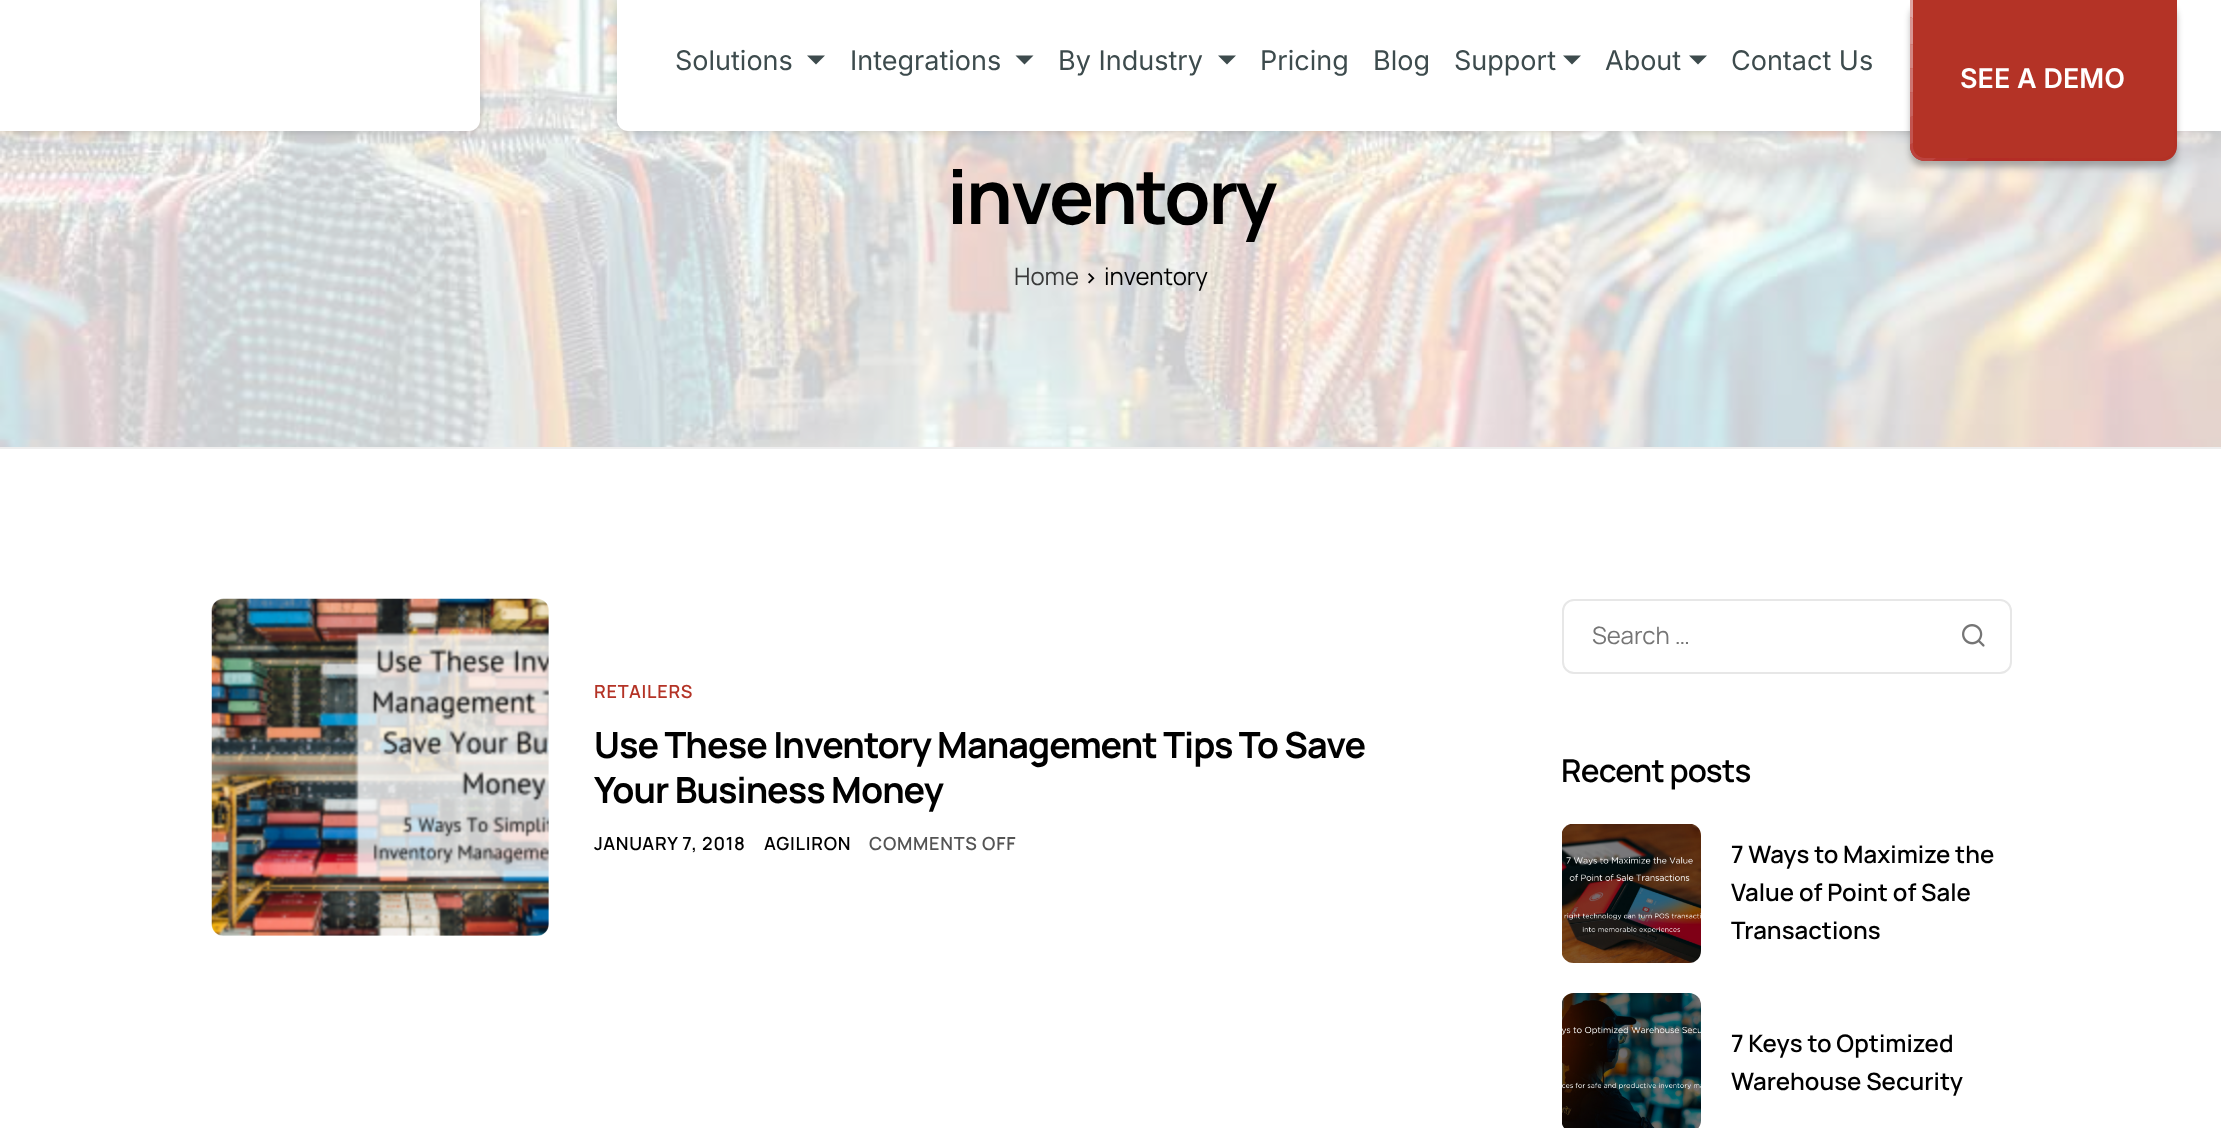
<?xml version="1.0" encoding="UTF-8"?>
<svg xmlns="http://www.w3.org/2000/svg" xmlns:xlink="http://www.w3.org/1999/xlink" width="2221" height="1128">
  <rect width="100%" height="100%" fill="#ffffff" />
  <image x="0" y="0" width="2221" height="447" xlink:href="image2.png" />
  <rect width="480" height="131" rx="11" fill="#000000" fill-opacity="0.2" filter="blur(5px)" />
  <path d="M 0 0 h 480 v 120 c 0 6 -5 11 -11 11 h -469 z" fill="#ffffff" />
  <rect x="617" width="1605" height="131" rx="11" fill="#000000" fill-opacity="0.2" filter="blur(5px)" />
  <path d="M 617 0 h 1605 v 131 h -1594 c -6 0 -11 -5 -11 -11 z" fill="#ffffff" />
  <path d="M 807 55.5 h 18 l -9 9 z" fill="#3d4b4d" />
  <path d="M 1015.5 55.5 h 18 l -9 9 z" fill="#3d4b4d" />
  <path d="M 1218 55.5 h 18 l -9 9 z" fill="#3d4b4d" />
  <path d="M 1563 55.5 h 18 l -9 9 z" fill="#3d4b4d" />
  <path d="M 1689 55.5 h 18 l -9 9 z" fill="#3d4b4d" />
  <rect x="1910" y="3" width="267" height="164" rx="15" fill="#000000" fill-opacity="0.25" filter="blur(3px)" />
  <path d="M 1910 -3 h 267 v 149 c 0 8.5 -6.5 15 -15 15 h -237 c -8.5 0 -15 -6.5 -15 -15 z" fill="#b43326" />
  <image x="1910" y="0" width="267" height="161" xlink:href="image1.png" />
  <path d="M 1913 0 h 261 v 146 c 0 6.5 -5.5 12 -12 12 h -237 c -6.5 0 -12 -5.5 -12 -12 z" fill="#b43326" />
  <rect y="447" width="2221" height="2" fill="#eeeeee" />
  <image x="1088" y="273" width="7" height="11" xlink:href="image3.png" />
  <image x="211" y="598" width="338" height="338" xlink:href="image4.png" />
  <rect x="1563" y="600" width="448" height="73" rx="11" fill="none" stroke="#e7e7e7" stroke-width="2" />
  <image x="1962" y="624" width="23" height="23" xlink:href="image5.png" />
  <image x="1562" y="824" width="139" height="139" xlink:href="image6.png" />
  <image x="1562" y="993" width="139" height="135" xlink:href="image7.png" />
  <text x="675" y="70" style="font-family: Inter; font-size: 27px; fill: #3d4b4d">Solutions</text>
  <text x="850" y="70" style="font-family: Inter; font-size: 27px; fill: #3d4b4d">Integrations</text>
  <text x="1058" y="70" style="font-family: Inter; font-size: 27px; fill: #3d4b4d">By Industry</text>
  <text x="1260" y="70" style="font-family: Inter; font-size: 27px; fill: #3d4b4d">Pricing</text>
  <text x="1373" y="70" style="font-family: Inter; font-size: 27px; fill: #3d4b4d">Blog</text>
  <text x="1454" y="70" style="font-family: Inter; font-size: 27px; fill: #3d4b4d">Support</text>
  <text x="1605" y="70" style="font-family: Inter; font-size: 27px; fill: #3d4b4d">About</text>
  <text x="1731" y="70" style="font-family: Inter; font-size: 27px; fill: #3d4b4d">Contact Us</text>
  <text x="1960" y="88" style="font-family: Inter; font-size: 27px; font-weight: 600; fill: #ffffff">SEE A DEMO</text>
  <text x="947" y="224" style="font-family: Manrope; font-size: 75px; font-weight: bold; letter-spacing: -2px; fill: #000000">inventory</text>
  <text x="1014" y="285" style="font-family: Manrope; font-size: 24px; fill: #383939">Home</text>
  <text x="1104" y="285" style="font-family: Manrope; font-size: 24px; fill: #000000">inventory</text>
  <text x="594" y="698" style="font-family: Manrope; font-size: 18px; font-weight: 600; letter-spacing: 0.75px; fill: #b43326">RETAILERS</text>
  <text x="594" y="758" style="font-family: Manrope; font-size: 36px; font-weight: bold; letter-spacing: -0.95px; fill: #000000">Use These Inventory Management Tips To Save</text>
  <text x="594" y="803" style="font-family: Manrope; font-size: 36px; font-weight: bold; letter-spacing: -0.95px; fill: #000000">Your Business Money</text>
  <text x="594" y="850" style="font-family: Manrope; font-size: 18px; font-weight: 600; letter-spacing: 0.75px; fill: #000000">JANUARY 7, 2018</text>
  <text x="764" y="850" style="font-family: Manrope; font-size: 18px; font-weight: 600; letter-spacing: 0.75px; fill: #000000">AGILIRON</text>
  <text x="869" y="850" style="font-family: Manrope; font-size: 18px; font-weight: 600; letter-spacing: 0.75px; fill: #545454">COMMENTS OFF</text>
  <text x="1592" y="644" style="font-family: Manrope; font-size: 24px; fill: #757575">Search …</text>
  <text x="1561" y="782" style="font-family: Manrope; font-size: 31.5px; font-weight: 600; letter-spacing: -0.8px; fill: #000000">Recent posts</text>
  <text x="1731" y="863" style="font-family: Manrope; font-size: 24px; font-weight: 600; fill: #000000">7 Ways to Maximize the</text>
  <text x="1731" y="901" style="font-family: Manrope; font-size: 24px; font-weight: 600; fill: #000000">Value of Point of Sale</text>
  <text x="1731" y="939" style="font-family: Manrope; font-size: 24px; font-weight: 600; fill: #000000">Transactions</text>
  <text x="1731" y="1052" style="font-family: Manrope; font-size: 24px; font-weight: 600; fill: #000000">7 Keys to Optimized</text>
  <text x="1731" y="1090" style="font-family: Manrope; font-size: 24px; font-weight: 600; fill: #000000">Warehouse Security</text>
</svg>
